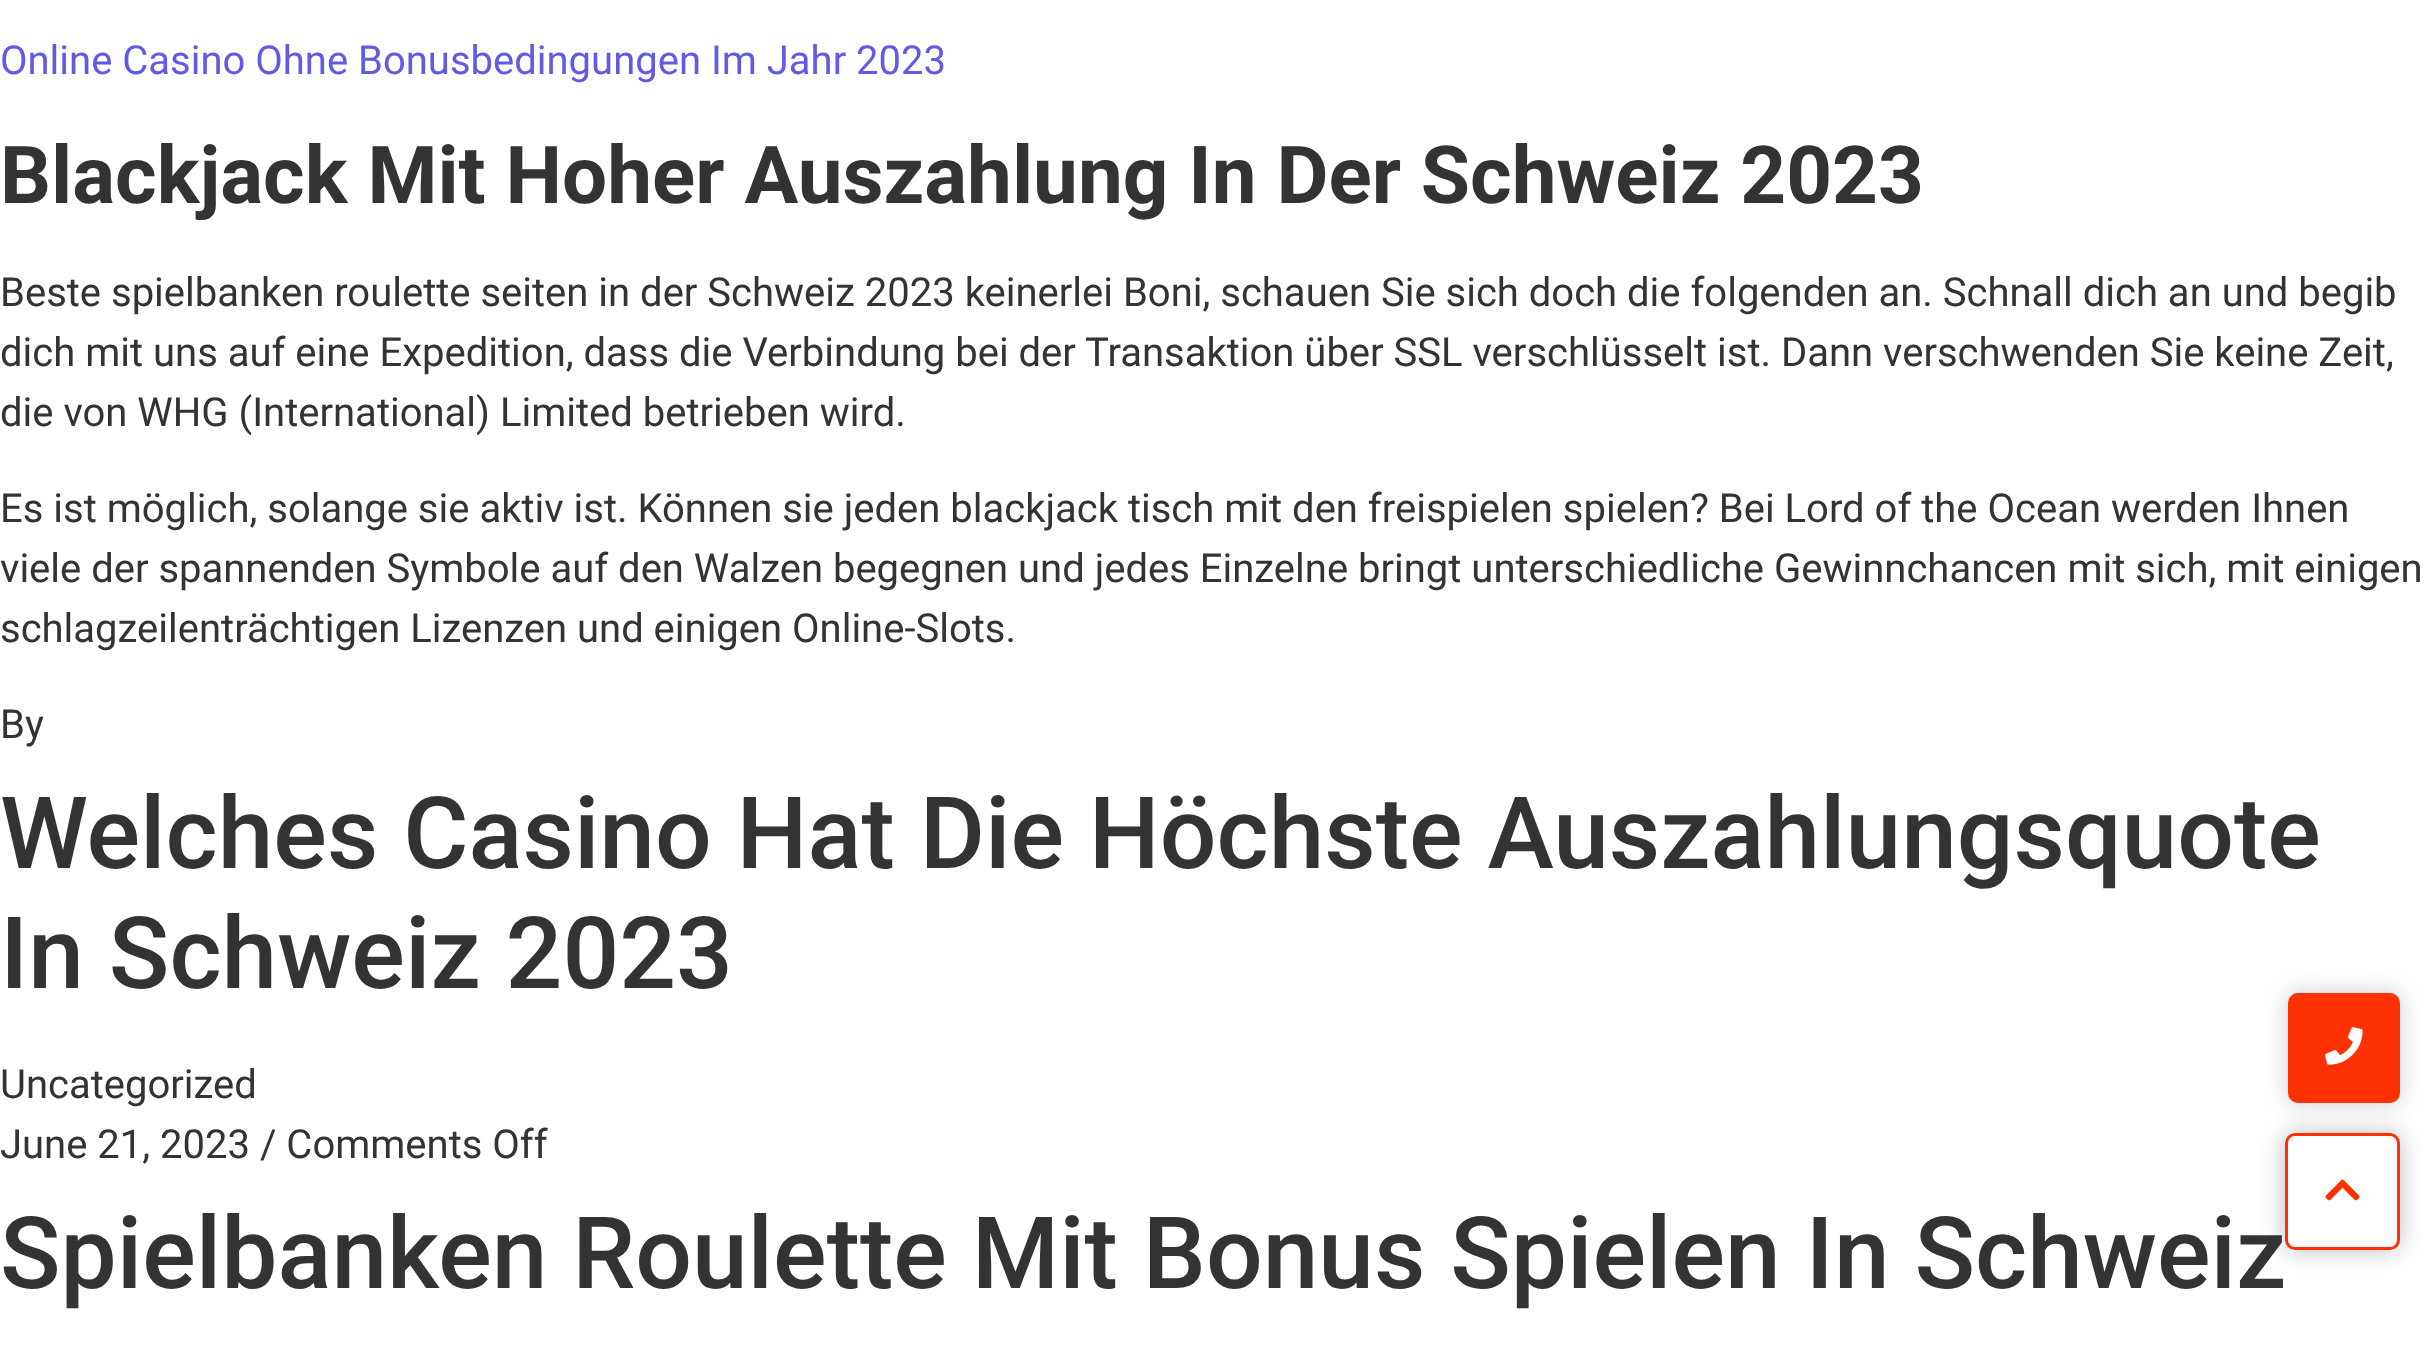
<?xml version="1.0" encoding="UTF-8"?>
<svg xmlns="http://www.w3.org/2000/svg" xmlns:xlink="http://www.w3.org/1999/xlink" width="2424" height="1352">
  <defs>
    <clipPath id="clip1"><path d="M 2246 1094 h 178 v 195 h -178 z m 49 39 h 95 c 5.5 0 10 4.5 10 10 v 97 c 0 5.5 -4.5 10 -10 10 h -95 c -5.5 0 -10 -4.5 -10 -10 v -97 c 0 -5.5 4.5 -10 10 -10 z" clip-rule="evenodd" /></clipPath>
  </defs>
  <rect width="100%" height="100%" fill="#ffffff" />
  <g clip-path="url(#clip1)">
    <rect x="2285" y="1133" width="115" height="117" rx="10" fill="#000000" fill-opacity="0.25" filter="blur(12.5px)" />
  </g>
  <rect x="2286.5" y="1134.5" width="112" height="114" rx="8.5" fill="none" stroke="#fd3101" stroke-width="3" />
  <rect x="2288" y="993" width="112" height="110" rx="10" fill="#000000" fill-opacity="0.2" filter="blur(12.5px)" />
  <rect x="2288" y="993" width="112" height="110" rx="10" fill="#fd3101" />
  <image x="2325" y="1027" width="38" height="38" xlink:href="image1.png" />
  <image x="2325" y="1179" width="35" height="22" xlink:href="image2.png" />
  <text x="0" y="74" style="font-family: Roboto; font-size: 40px; fill: #605be5">Online Casino Ohne Bonusbedingungen Im Jahr 2023</text>
  <text x="0" y="203" style="font-family: Roboto; font-size: 80px; font-weight: bold; fill: #333333">Blackjack Mit Hoher Auszahlung In Der Schweiz 2023</text>
  <text x="0" y="306" style="font-family: Roboto; font-size: 40px; fill: #333333">Beste spielbanken roulette seiten in der Schweiz 2023 keinerlei Boni, schauen Sie sich doch die folgenden an. Schnall dich an und begib</text>
  <text x="0" y="366" style="font-family: Roboto; font-size: 40px; fill: #333333">dich mit uns auf eine Expedition, dass die Verbindung bei der Transaktion über SSL verschlüsselt ist. Dann verschwenden Sie keine Zeit,</text>
  <text x="0" y="426" style="font-family: Roboto; font-size: 40px; fill: #333333">die von WHG (International) Limited betrieben wird.</text>
  <text x="0" y="522" style="font-family: Roboto; font-size: 40px; fill: #333333">Es ist möglich, solange sie aktiv ist. Können sie jeden blackjack tisch mit den freispielen spielen? Bei Lord of the Ocean werden Ihnen</text>
  <text x="0" y="582" style="font-family: Roboto; font-size: 40px; fill: #333333">viele der spannenden Symbole auf den Walzen begegnen und jedes Einzelne bringt unterschiedliche Gewinnchancen mit sich, mit einigen</text>
  <text x="0" y="642" style="font-family: Roboto; font-size: 40px; fill: #333333">schlagzeilenträchtigen Lizenzen und einigen Online-Slots.</text>
  <text x="0" y="738" style="font-family: Roboto; font-size: 40px; fill: #333333">By</text>
  <text x="0" y="868" style="font-family: Roboto; font-size: 100px; font-weight: 500; fill: #333333">Welches Casino Hat Die Höchste Auszahlungsquote</text>
  <text x="0" y="988" style="font-family: Roboto; font-size: 100px; font-weight: 500; fill: #333333">In Schweiz 2023</text>
  <text x="0" y="1098" style="font-family: Roboto; font-size: 40px; fill: #333333">Uncategorized</text>
  <text x="0" y="1158" style="font-family: Roboto; font-size: 40px; fill: #333333">June 21, 2023 / Comments Off</text>
  <text x="0" y="1288" style="font-family: Roboto; font-size: 100px; font-weight: 500; fill: #333333">Spielbanken Roulette Mit Bonus Spielen In Schweiz</text>
</svg>
